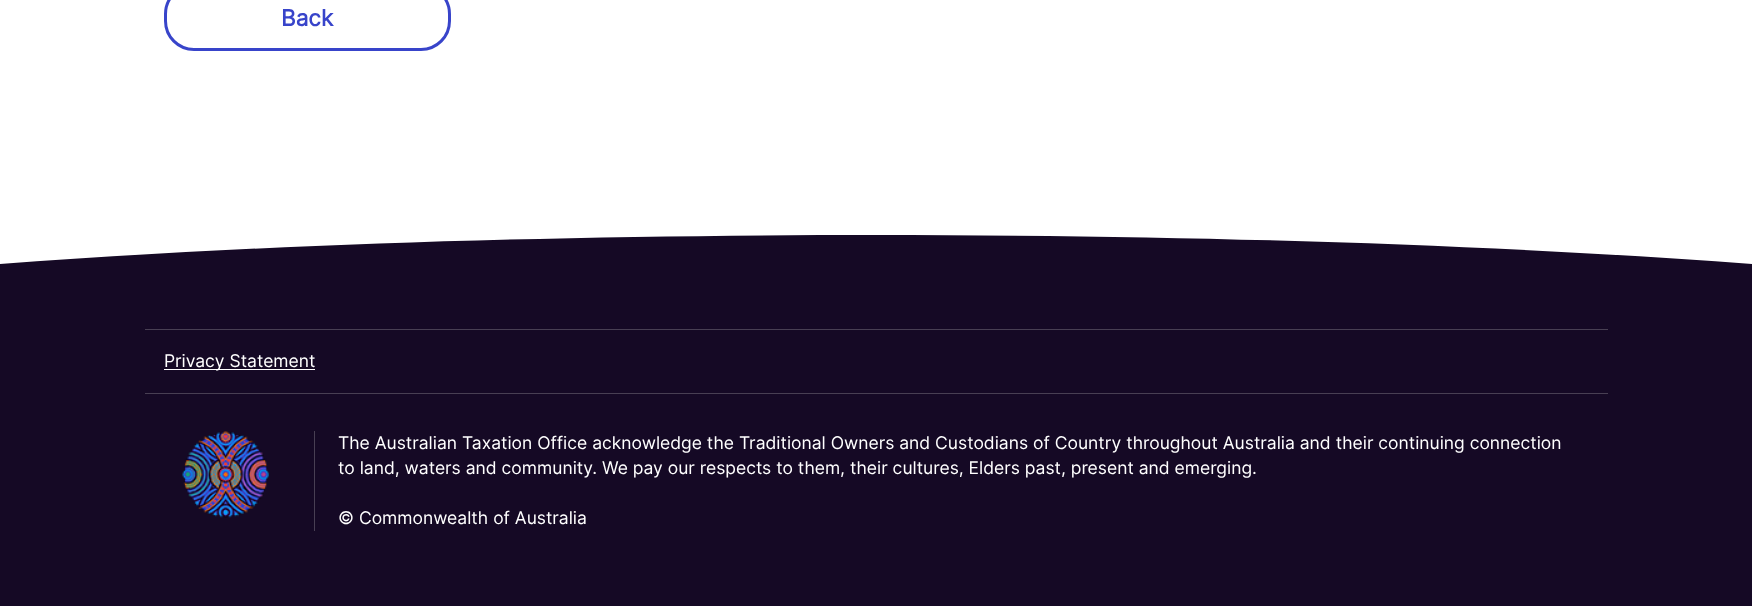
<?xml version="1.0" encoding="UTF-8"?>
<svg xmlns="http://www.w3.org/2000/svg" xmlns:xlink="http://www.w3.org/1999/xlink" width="1752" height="606">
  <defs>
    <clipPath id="clip1"><rect y="204" width="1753" height="95" /></clipPath>
  </defs>
  <rect width="100%" height="100%" fill="#ffffff" />
  <rect x="165.5" y="-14.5" width="284" height="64" rx="28.5" fill="none" stroke="#3844ca" stroke-width="3" />
  <rect y="235" width="1752" height="371" fill="#150925" />
  <g clip-path="url(#clip1)">
    <path d="M 876 235 c 503 0 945 25 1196 63 v -95 h -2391 v 95 c 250 -38 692 -63 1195 -63 z" fill="#ffffff" />
  </g>
  <rect x="145" y="329" width="1463" height="1" fill="#483f53" />
  <rect x="145" y="393" width="1463" height="1" fill="#483f53" />
  <rect x="164" y="369" width="151" height="1" fill="#ffffff" />
  <rect x="314" y="431" width="1" height="100" fill="#483f53" />
  <image x="182" y="431" width="87" height="87" xlink:href="image1.png" />
  <text x="281" y="26" style="font-family: Inter; font-size: 22.5px; font-weight: bold; fill: #3844ca">Back</text>
  <text x="164" y="367" style="font-family: Inter; font-size: 17.5px; fill: #ffffff">Privacy Statement</text>
  <text x="338" y="449" style="font-family: Inter; font-size: 17.5px; fill: #ffffff">The Australian Taxation Office acknowledge the Traditional Owners and Custodians of Country throughout Australia and their continuing connection</text>
  <text x="338" y="474" style="font-family: Inter; font-size: 17.5px; fill: #ffffff">to land, waters and community. We pay our respects to them, their cultures, Elders past, present and emerging.</text>
  <text x="338" y="524" style="font-family: Inter; font-size: 17.5px; fill: #ffffff">© Commonwealth of Australia</text>
</svg>
